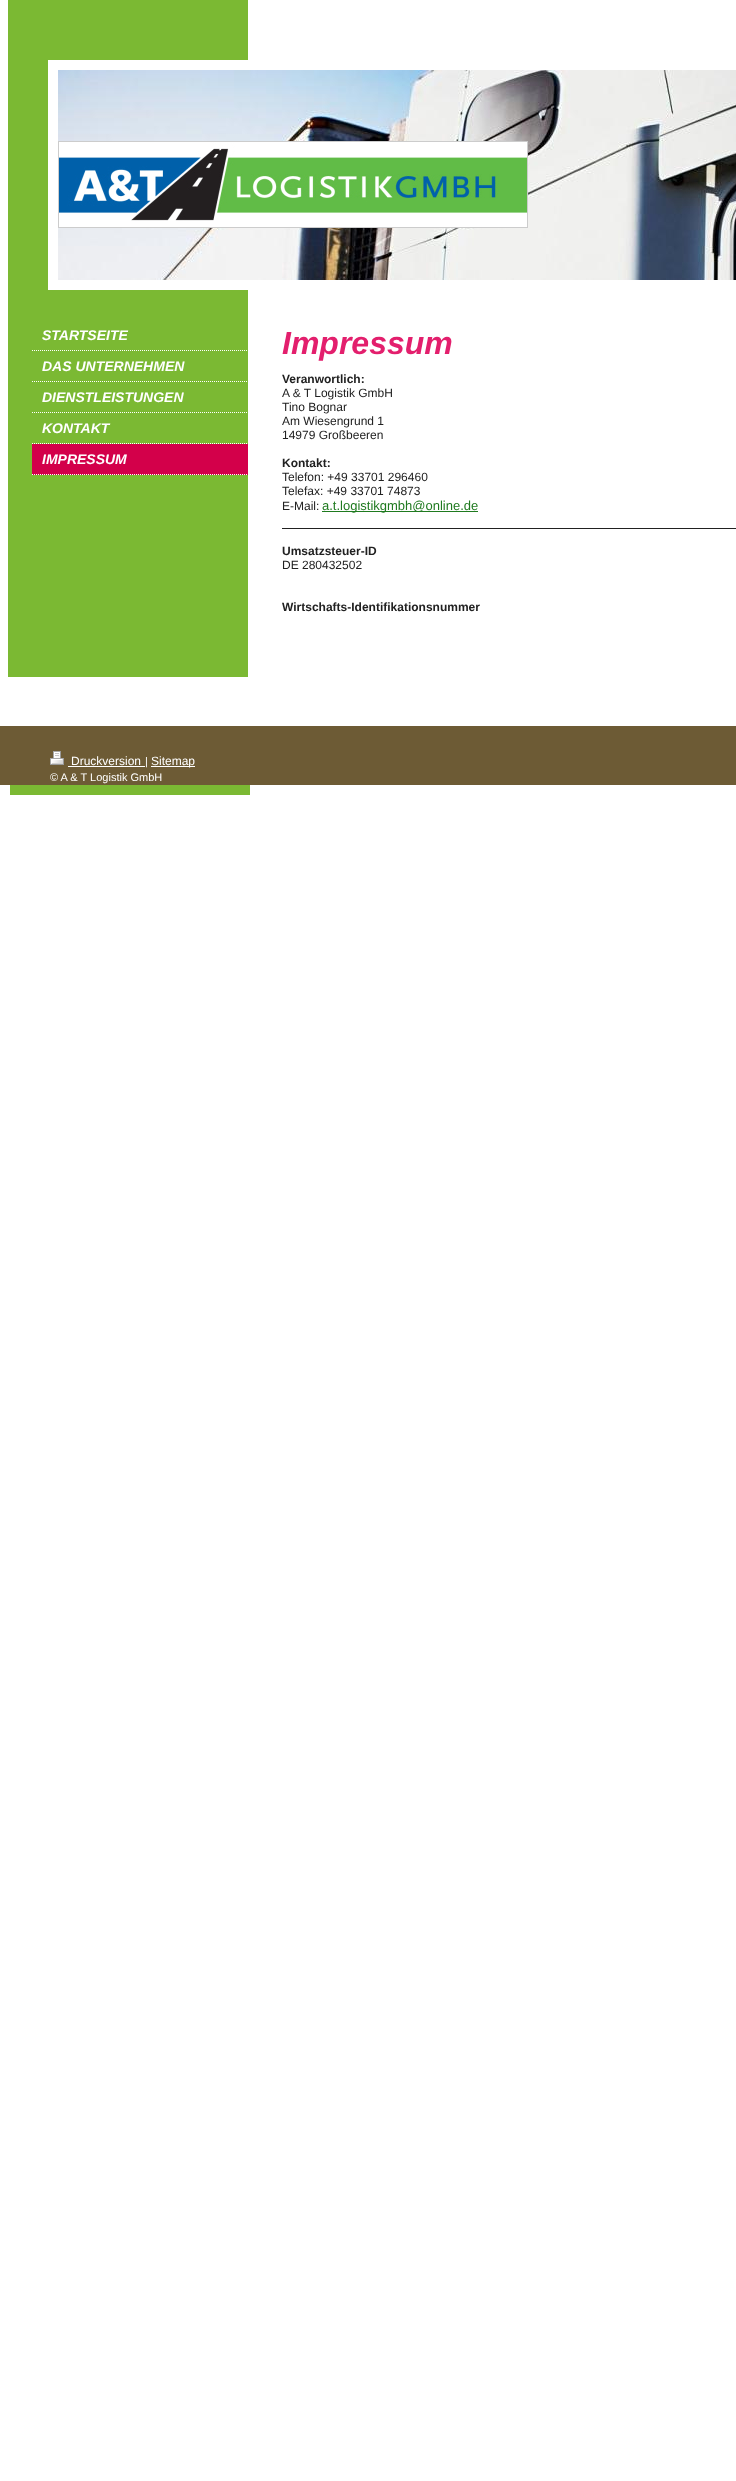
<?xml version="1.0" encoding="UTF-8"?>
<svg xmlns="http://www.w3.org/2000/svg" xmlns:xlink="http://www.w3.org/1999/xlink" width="736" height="2481">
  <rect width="100%" height="100%" fill="#ffffff" />
  <rect x="8" width="240" height="60" fill="#7bb933" />
  <rect x="8" y="60" width="40" height="230" fill="#7bb933" />
  <image x="58" y="70" width="678" height="210" xlink:href="image1.png" />
  <rect x="58.5" y="141.5" width="469" height="86" fill="none" stroke="#cccccc" />
  <image x="59" y="142" width="468" height="85" xlink:href="image2.png" />
  <rect x="8" y="290" width="240" height="387" fill="#7bb933" />
  <path d="M 32 350.5 h 216" fill="none" stroke="#ffffff" stroke-dasharray="1 1" />
  <path d="M 32 381.5 h 216" fill="none" stroke="#ffffff" stroke-dasharray="1 1" />
  <path d="M 32 412.5 h 216" fill="none" stroke="#ffffff" stroke-dasharray="1 1" />
  <path d="M 32 443.5 h 216" fill="none" stroke="#ffffff" stroke-dasharray="1 1" />
  <rect x="32" y="444" width="216" height="31" fill="#d3004a" />
  <path d="M 32 474.5 h 216" fill="none" stroke="#ffffff" stroke-dasharray="1 1" />
  <rect x="322" y="511" width="156" height="1" fill="#1f7a1f" />
  <rect x="282" y="528" width="454" height="1" fill="#212121" />
  <rect y="726" width="736" height="59" fill="#6d5b35" />
  <image x="50" y="751" width="14" height="14" xlink:href="image3.png" />
  <rect x="68" y="766" width="77" height="1" fill="#ffffff" />
  <rect x="151" y="766" width="44" height="1" fill="#ffffff" />
  <rect x="10" y="785" width="240" height="10" fill="#7bb933" />
  <text x="42" y="340" style="font-family: Liberation Sans; font-size: 14px; font-weight: bold; font-style: italic; fill: #ffffff">STARTSEITE</text>
  <text x="42" y="371" style="font-family: Liberation Sans; font-size: 14px; font-weight: bold; font-style: italic; fill: #ffffff">DAS UNTERNEHMEN</text>
  <text x="42" y="402" style="font-family: Liberation Sans; font-size: 14px; font-weight: bold; font-style: italic; fill: #ffffff">DIENSTLEISTUNGEN</text>
  <text x="42" y="433" style="font-family: Liberation Sans; font-size: 14px; font-weight: bold; font-style: italic; fill: #ffffff">KONTAKT</text>
  <text x="42" y="464" style="font-family: Liberation Sans; font-size: 14px; font-weight: bold; font-style: italic; fill: #ffffff">IMPRESSUM</text>
  <text x="282" y="354" style="font-family: Liberation Sans; font-size: 32px; font-weight: bold; font-style: italic; fill: #e31f6d">Impressum</text>
  <text x="282" y="383" style="font-family: Liberation Sans; font-size: 12px; font-weight: bold; fill: #212121">Veranwortlich:</text>
  <text x="282" y="397" style="font-family: Liberation Sans; font-size: 12px; fill: #212121">A &amp; T Logistik GmbH</text>
  <text x="282" y="411" style="font-family: Liberation Sans; font-size: 12px; fill: #212121">Tino Bognar</text>
  <text x="282" y="425" style="font-family: Liberation Sans; font-size: 12px; fill: #212121">Am Wiesengrund 1</text>
  <text x="282" y="439" style="font-family: Liberation Sans; font-size: 12px; fill: #212121">14979 Großbeeren</text>
  <text x="282" y="467" style="font-family: Liberation Sans; font-size: 12px; font-weight: bold; fill: #212121">Kontakt:</text>
  <text x="282" y="481" style="font-family: Liberation Sans; font-size: 12px; fill: #212121">Telefon: +49 33701 296460</text>
  <text x="282" y="495" style="font-family: Liberation Sans; font-size: 12px; fill: #212121">Telefax: +49 33701 74873</text>
  <text x="282" y="510" style="font-family: Liberation Sans; font-size: 12px; fill: #212121">E-Mail:</text>
  <text x="322" y="510" style="font-family: Liberation Sans; font-size: 13px; fill: #1f7a1f">a.t.logistikgmbh@online.de</text>
  <text x="282" y="555" style="font-family: Liberation Sans; font-size: 12px; font-weight: bold; fill: #212121">Umsatzsteuer-ID</text>
  <text x="282" y="569" style="font-family: Liberation Sans; font-size: 12px; fill: #212121">DE 280432502</text>
  <text x="282" y="611" style="font-family: Liberation Sans; font-size: 12px; font-weight: bold; fill: #212121">Wirtschafts-Identifikationsnummer</text>
  <text x="71" y="765" style="font-family: Liberation Sans; font-size: 12px; fill: #ffffff">Druckversion</text>
  <text x="145" y="765" style="font-family: Liberation Sans; font-size: 11px; fill: #ffffff">|</text>
  <text x="151" y="765" style="font-family: Liberation Sans; font-size: 12px; fill: #ffffff">Sitemap</text>
  <text x="50" y="781" style="font-family: Liberation Sans; font-size: 11px; fill: #ffffff">© A &amp; T Logistik GmbH</text>
</svg>
